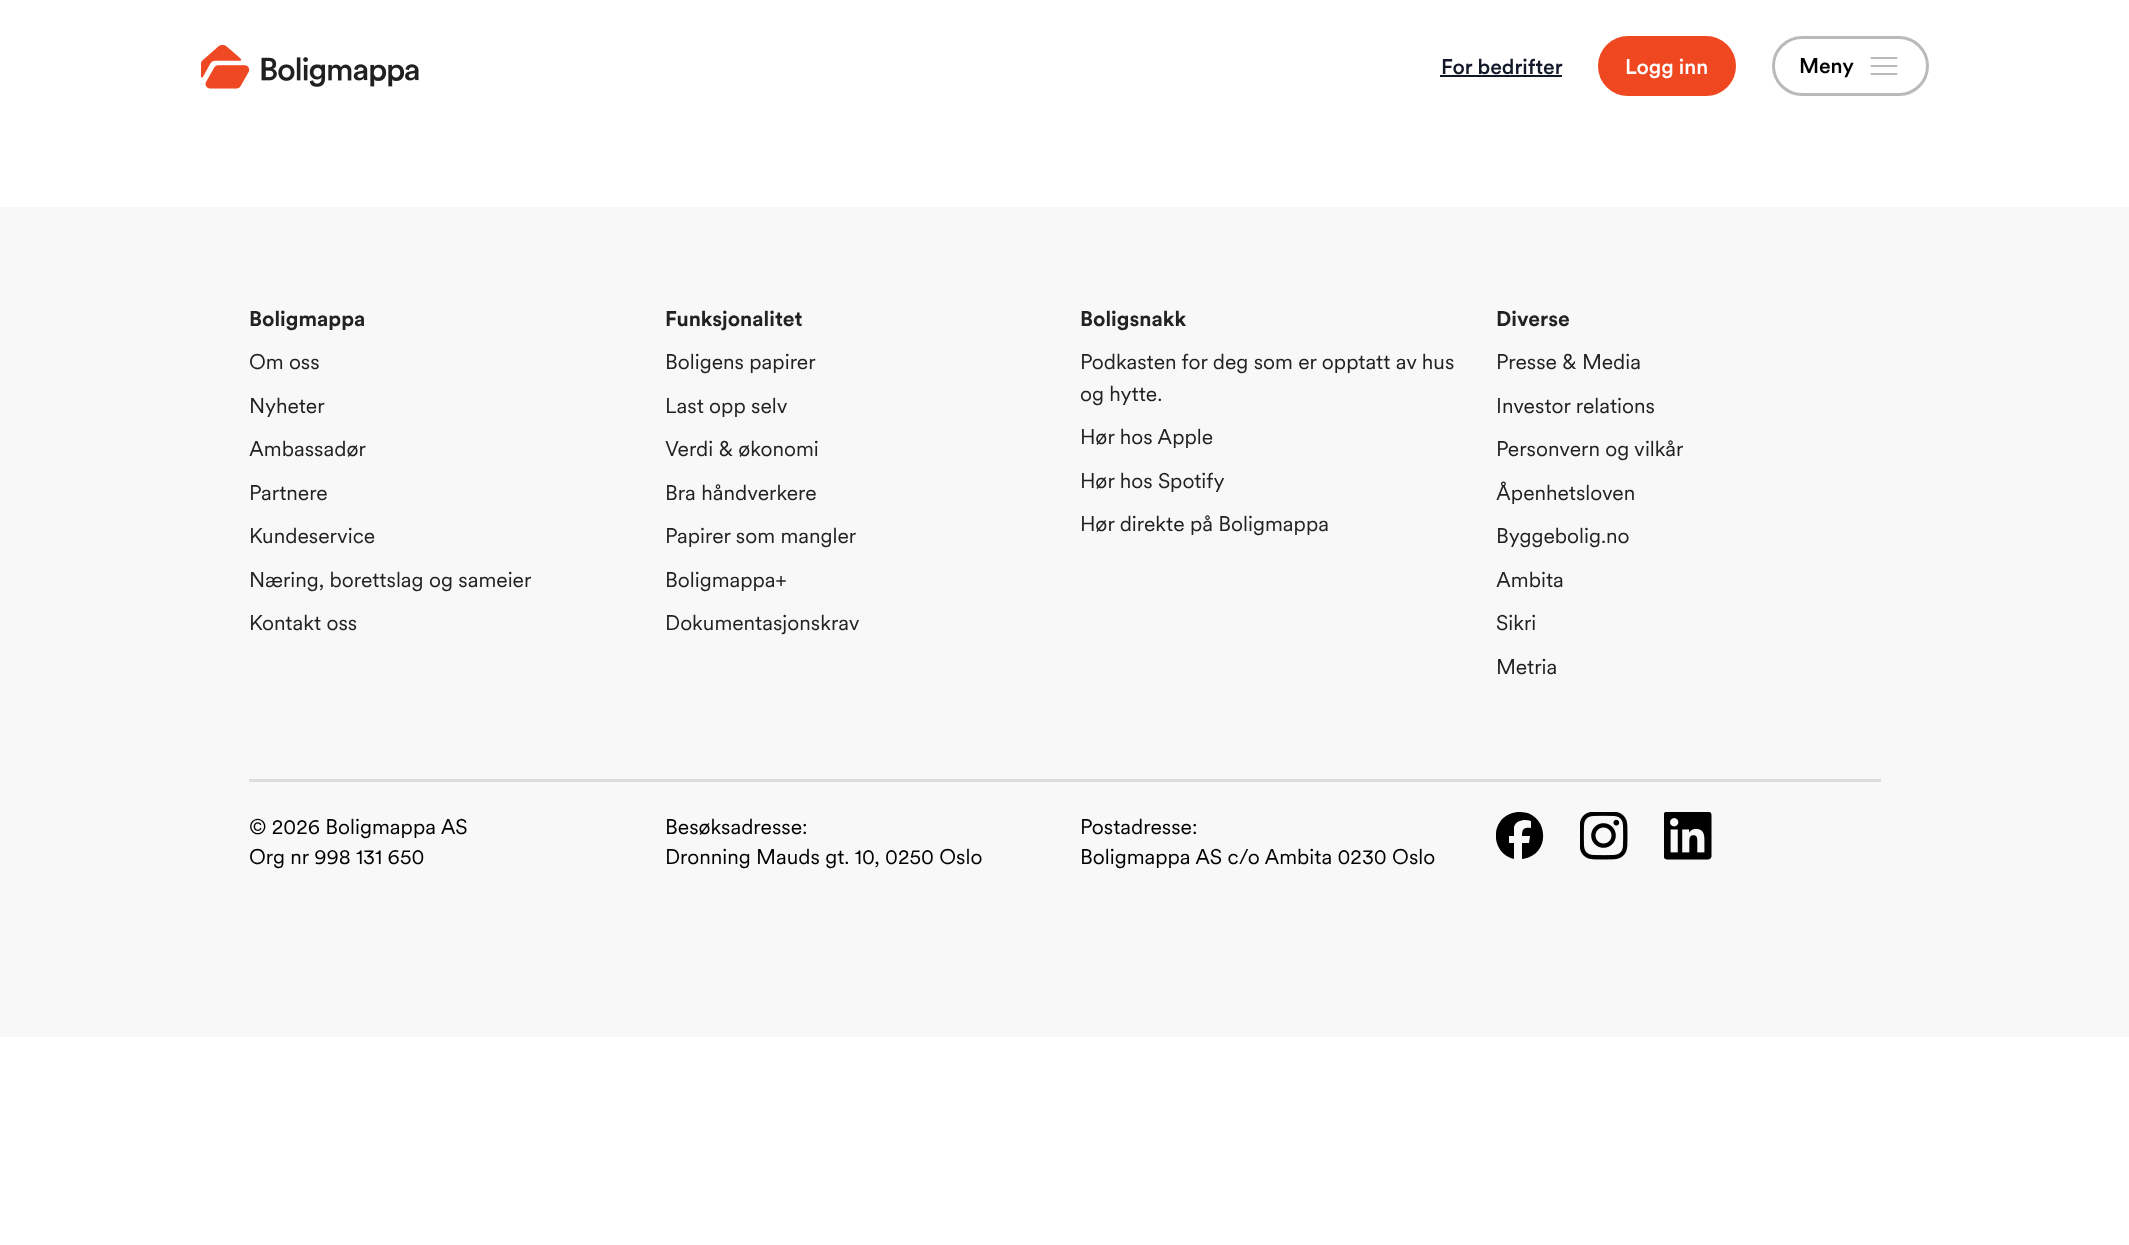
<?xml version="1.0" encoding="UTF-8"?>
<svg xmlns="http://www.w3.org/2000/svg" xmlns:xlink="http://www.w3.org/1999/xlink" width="2129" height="1245">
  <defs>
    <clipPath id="clip1"><rect x="1496" y="812" width="48" height="48" /></clipPath>
  </defs>
  <rect width="100%" height="100%" fill="#ffffff" />
  <image x="201" y="45" width="218" height="44" xlink:href="image1.png" />
  <rect x="1440" y="75" width="122" height="2" fill="#111827" />
  <rect x="1599.5" y="37.5" width="135" height="57" rx="28.5" fill="#ef4821" stroke="#ef4821" stroke-width="3" />
  <rect x="1773.5" y="37.5" width="154" height="57" rx="28.5" fill="none" stroke="#bababa" stroke-width="3" />
  <path d="M 1871.5 58 h 25 m -25 8 h 25 m -25 8 h 25" fill="none" stroke="#bababa" stroke-width="2.2" stroke-linecap="round" stroke-linejoin="round" />
  <rect y="207" width="2129" height="830" fill="#f8f8f8" />
  <rect x="249" y="779" width="1632" height="3" fill="#dddddd" />
  <g clip-path="url(#clip1)">
    <path d="M 1520 812 c -29 0 -33 40 -6 47 v -16 h -5 v -7 h 5 v -9 c 2 -7 11 -8 17 -6 v 7 c -7 -1 -9 1 -9 8 h 8 l -1 7 h -7 v 16 c 30 -3 27 -47 -2 -47 z" fill="#000000" fill-rule="evenodd" />
  </g>
  <image x="1580" y="812" width="48" height="48" xlink:href="image2.png" />
  <image x="1664" y="812" width="48" height="48" xlink:href="image3.png" />
  <text x="1441" y="74" style="font-family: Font; font-size: 21px; font-weight: 500; fill: #111827">For bedrifter</text>
  <text x="1625" y="74" style="font-family: Font; font-size: 21px; font-weight: 500; fill: #ffffff">Logg inn</text>
  <text x="1799" y="73" style="font-family: Font; font-size: 21px; font-weight: 500; fill: #000000">Meny</text>
  <text x="249" y="326" style="font-family: Font; font-size: 21px; font-weight: bold; fill: #222222">Boligmappa</text>
  <text x="249" y="369" style="font-family: Font; font-size: 21px; fill: #222222">Om oss</text>
  <text x="249" y="413" style="font-family: Font; font-size: 21px; fill: #222222">Nyheter</text>
  <text x="249" y="456" style="font-family: Font; font-size: 21px; fill: #222222">Ambassadør</text>
  <text x="249" y="500" style="font-family: Font; font-size: 21px; fill: #222222">Partnere</text>
  <text x="249" y="543" style="font-family: Font; font-size: 21px; fill: #222222">Kundeservice</text>
  <text x="249" y="587" style="font-family: Font; font-size: 21px; fill: #222222">Næring, borettslag og sameier</text>
  <text x="249" y="630" style="font-family: Font; font-size: 21px; fill: #222222">Kontakt oss</text>
  <text x="665" y="326" style="font-family: Font; font-size: 21px; font-weight: bold; fill: #222222">Funksjonalitet</text>
  <text x="665" y="369" style="font-family: Font; font-size: 21px; fill: #222222">Boligens papirer</text>
  <text x="665" y="413" style="font-family: Font; font-size: 21px; fill: #222222">Last opp selv</text>
  <text x="665" y="456" style="font-family: Font; font-size: 21px; fill: #222222">Verdi &amp; økonomi</text>
  <text x="665" y="500" style="font-family: Font; font-size: 21px; fill: #222222">Bra håndverkere</text>
  <text x="665" y="543" style="font-family: Font; font-size: 21px; fill: #222222">Papirer som mangler</text>
  <text x="665" y="587" style="font-family: Font; font-size: 21px; fill: #222222">Boligmappa+</text>
  <text x="665" y="630" style="font-family: Font; font-size: 21px; fill: #222222">Dokumentasjonskrav</text>
  <text x="1080" y="326" style="font-family: Font; font-size: 21px; font-weight: bold; fill: #222222">Boligsnakk</text>
  <text x="1080" y="369" style="font-family: Font; font-size: 21px; fill: #222222">Podkasten for deg som er opptatt av hus</text>
  <text x="1080" y="401" style="font-family: Font; font-size: 21px; fill: #222222">og hytte.</text>
  <text x="1080" y="444" style="font-family: Font; font-size: 21px; fill: #222222">Hør hos Apple</text>
  <text x="1080" y="488" style="font-family: Font; font-size: 21px; fill: #222222">Hør hos Spotify</text>
  <text x="1080" y="531" style="font-family: Font; font-size: 21px; fill: #222222">Hør direkte på Boligmappa</text>
  <text x="1496" y="326" style="font-family: Font; font-size: 21px; font-weight: bold; fill: #222222">Diverse</text>
  <text x="1496" y="369" style="font-family: Font; font-size: 21px; fill: #222222">Presse &amp; Media</text>
  <text x="1496" y="413" style="font-family: Font; font-size: 21px; fill: #222222">Investor relations</text>
  <text x="1496" y="456" style="font-family: Font; font-size: 21px; fill: #222222">Personvern og vilkår</text>
  <text x="1496" y="500" style="font-family: Font; font-size: 21px; fill: #222222">Åpenhetsloven</text>
  <text x="1496" y="543" style="font-family: Font; font-size: 21px; fill: #222222">Byggebolig.no</text>
  <text x="1496" y="587" style="font-family: Font; font-size: 21px; fill: #222222">Ambita</text>
  <text x="1496" y="630" style="font-family: Font; font-size: 21px; fill: #222222">Sikri</text>
  <text x="1496" y="674" style="font-family: Font; font-size: 21px; fill: #222222">Metria</text>
  <text x="249" y="834" style="font-family: Font; font-size: 21px; fill: #000000">© 2026 Boligmappa AS</text>
  <text x="249" y="864" style="font-family: Font; font-size: 21px; fill: #000000">Org nr 998 131 650</text>
  <text x="665" y="834" style="font-family: Font; font-size: 21px; fill: #000000">Besøksadresse:</text>
  <text x="665" y="864" style="font-family: Font; font-size: 21px; fill: #000000">Dronning Mauds gt. 10, 0250 Oslo</text>
  <text x="1080" y="834" style="font-family: Font; font-size: 21px; fill: #000000">Postadresse:</text>
  <text x="1080" y="864" style="font-family: Font; font-size: 21px; fill: #000000">Boligmappa AS c/o Ambita 0230 Oslo</text>
</svg>
